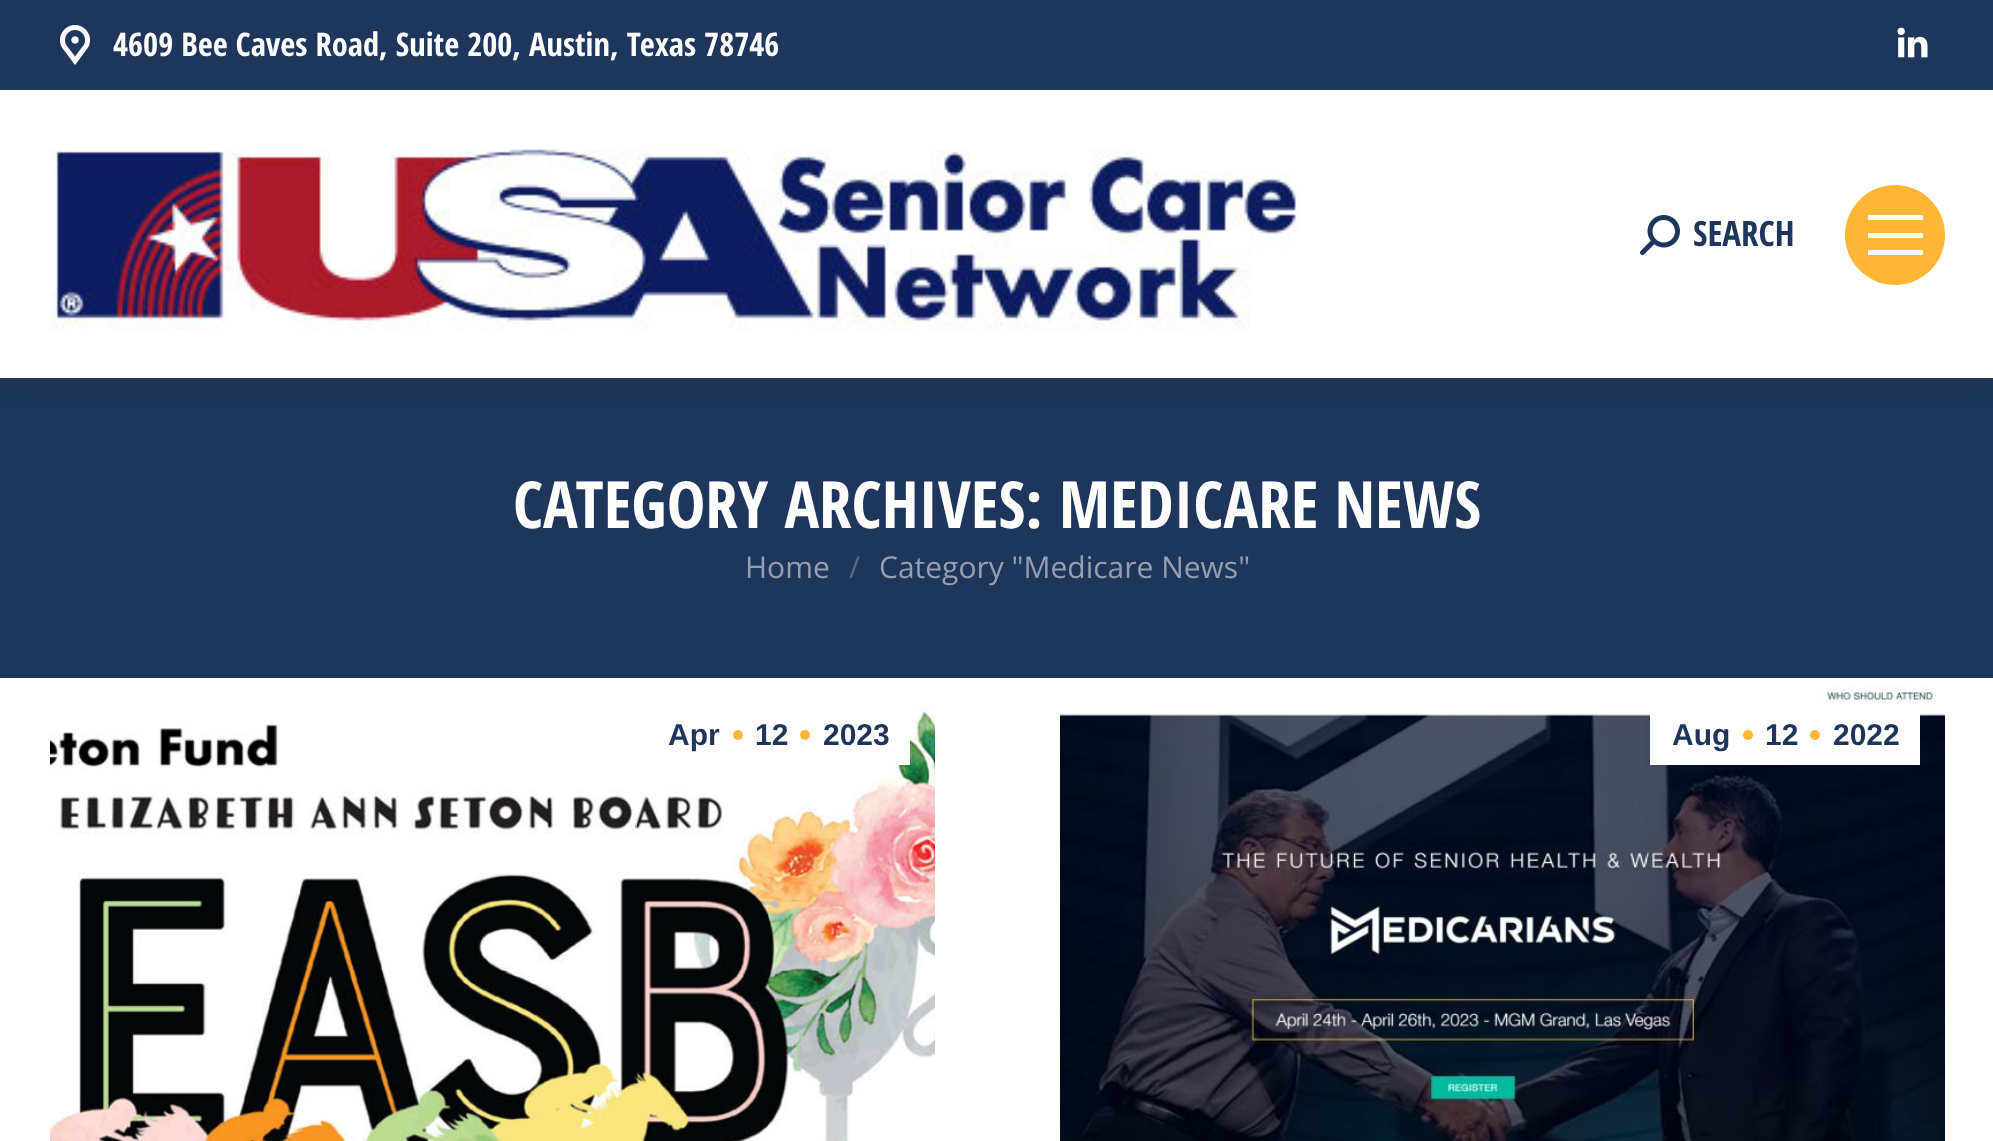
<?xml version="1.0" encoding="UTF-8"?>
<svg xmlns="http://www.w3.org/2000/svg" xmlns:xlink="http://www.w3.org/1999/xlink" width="1993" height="1141">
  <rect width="100%" height="100%" fill="#ffffff" />
  <rect y="378" width="1993" height="300" fill="#1f365c" />
  <rect x="-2" y="-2" width="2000" height="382" fill="#000000" fill-opacity="0.07" filter="blur(19px)" />
  <rect y="90" width="1993" height="288" fill="#ffffff" />
  <rect width="1993" height="90" fill="#1f365c" />
  <image x="60" y="25" width="30" height="40" xlink:href="image1.png" />
  <image x="1897" y="27" width="31" height="31" xlink:href="image2.png" />
  <image x="50" y="149" width="1250" height="182" xlink:href="image3.png" />
  <image x="1640" y="215" width="40" height="40" xlink:href="image4.png" />
  <circle cx="1895" cy="235" r="50" fill="#ffb536" />
  <rect x="1868" y="215" width="55" height="5" fill="#ffffff" />
  <rect x="1868" y="233" width="55" height="5" fill="#ffffff" />
  <rect x="1868" y="250" width="55" height="5" fill="#ffffff" />
  <image x="50" y="705" width="885" height="436" xlink:href="image5.png" />
  <rect x="888" y="732" width="22" height="33" fill="#ffffff" />
  <circle cx="738" cy="735" r="5" fill="#ffb536" />
  <circle cx="805" cy="735" r="5" fill="#ffb536" />
  <image x="1060" y="686" width="885" height="455" xlink:href="image6.png" />
  <rect x="1650" y="703" width="270" height="62" fill="#ffffff" />
  <circle cx="1748" cy="735" r="5" fill="#ffb536" />
  <circle cx="1815" cy="735" r="5" fill="#ffb536" />
  <text x="113" y="56" style="font-family: Open Sans Condensed; font-size: 32.5px; font-weight: bold; fill: #ffffff">4609 Bee Caves Road, Suite 200, Austin, Texas 78746</text>
  <text x="1693" y="246" style="font-family: Open Sans Condensed; font-size: 35px; font-weight: bold; fill: #1f365c">SEARCH</text>
  <text x="513" y="528" style="font-family: Open Sans Condensed; font-size: 65px; font-weight: bold; fill: #ffffff">CATEGORY ARCHIVES: MEDICARE NEWS</text>
  <text x="745" y="578" style="font-family: Open Sans; font-size: 30px; fill: #949fb2">Home</text>
  <text x="849" y="578" style="font-family: Open Sans; font-size: 30px; fill: #5a6b87">/</text>
  <text x="879" y="578" style="font-family: Open Sans; font-size: 30px; fill: #949fb2">Category "Medicare News"</text>
  <text x="668" y="745" style="font-family: Liberation Sans; font-size: 30px; font-weight: bold; fill: #1f365c">Apr</text>
  <text x="755" y="745" style="font-family: Liberation Sans; font-size: 30px; font-weight: bold; fill: #1f365c">12</text>
  <text x="823" y="745" style="font-family: Liberation Sans; font-size: 30px; font-weight: bold; fill: #1f365c">2023</text>
  <text x="1672" y="745" style="font-family: Liberation Sans; font-size: 30px; font-weight: bold; fill: #1f365c">Aug</text>
  <text x="1765" y="745" style="font-family: Liberation Sans; font-size: 30px; font-weight: bold; fill: #1f365c">12</text>
  <text x="1833" y="745" style="font-family: Liberation Sans; font-size: 30px; font-weight: bold; fill: #1f365c">2022</text>
</svg>
